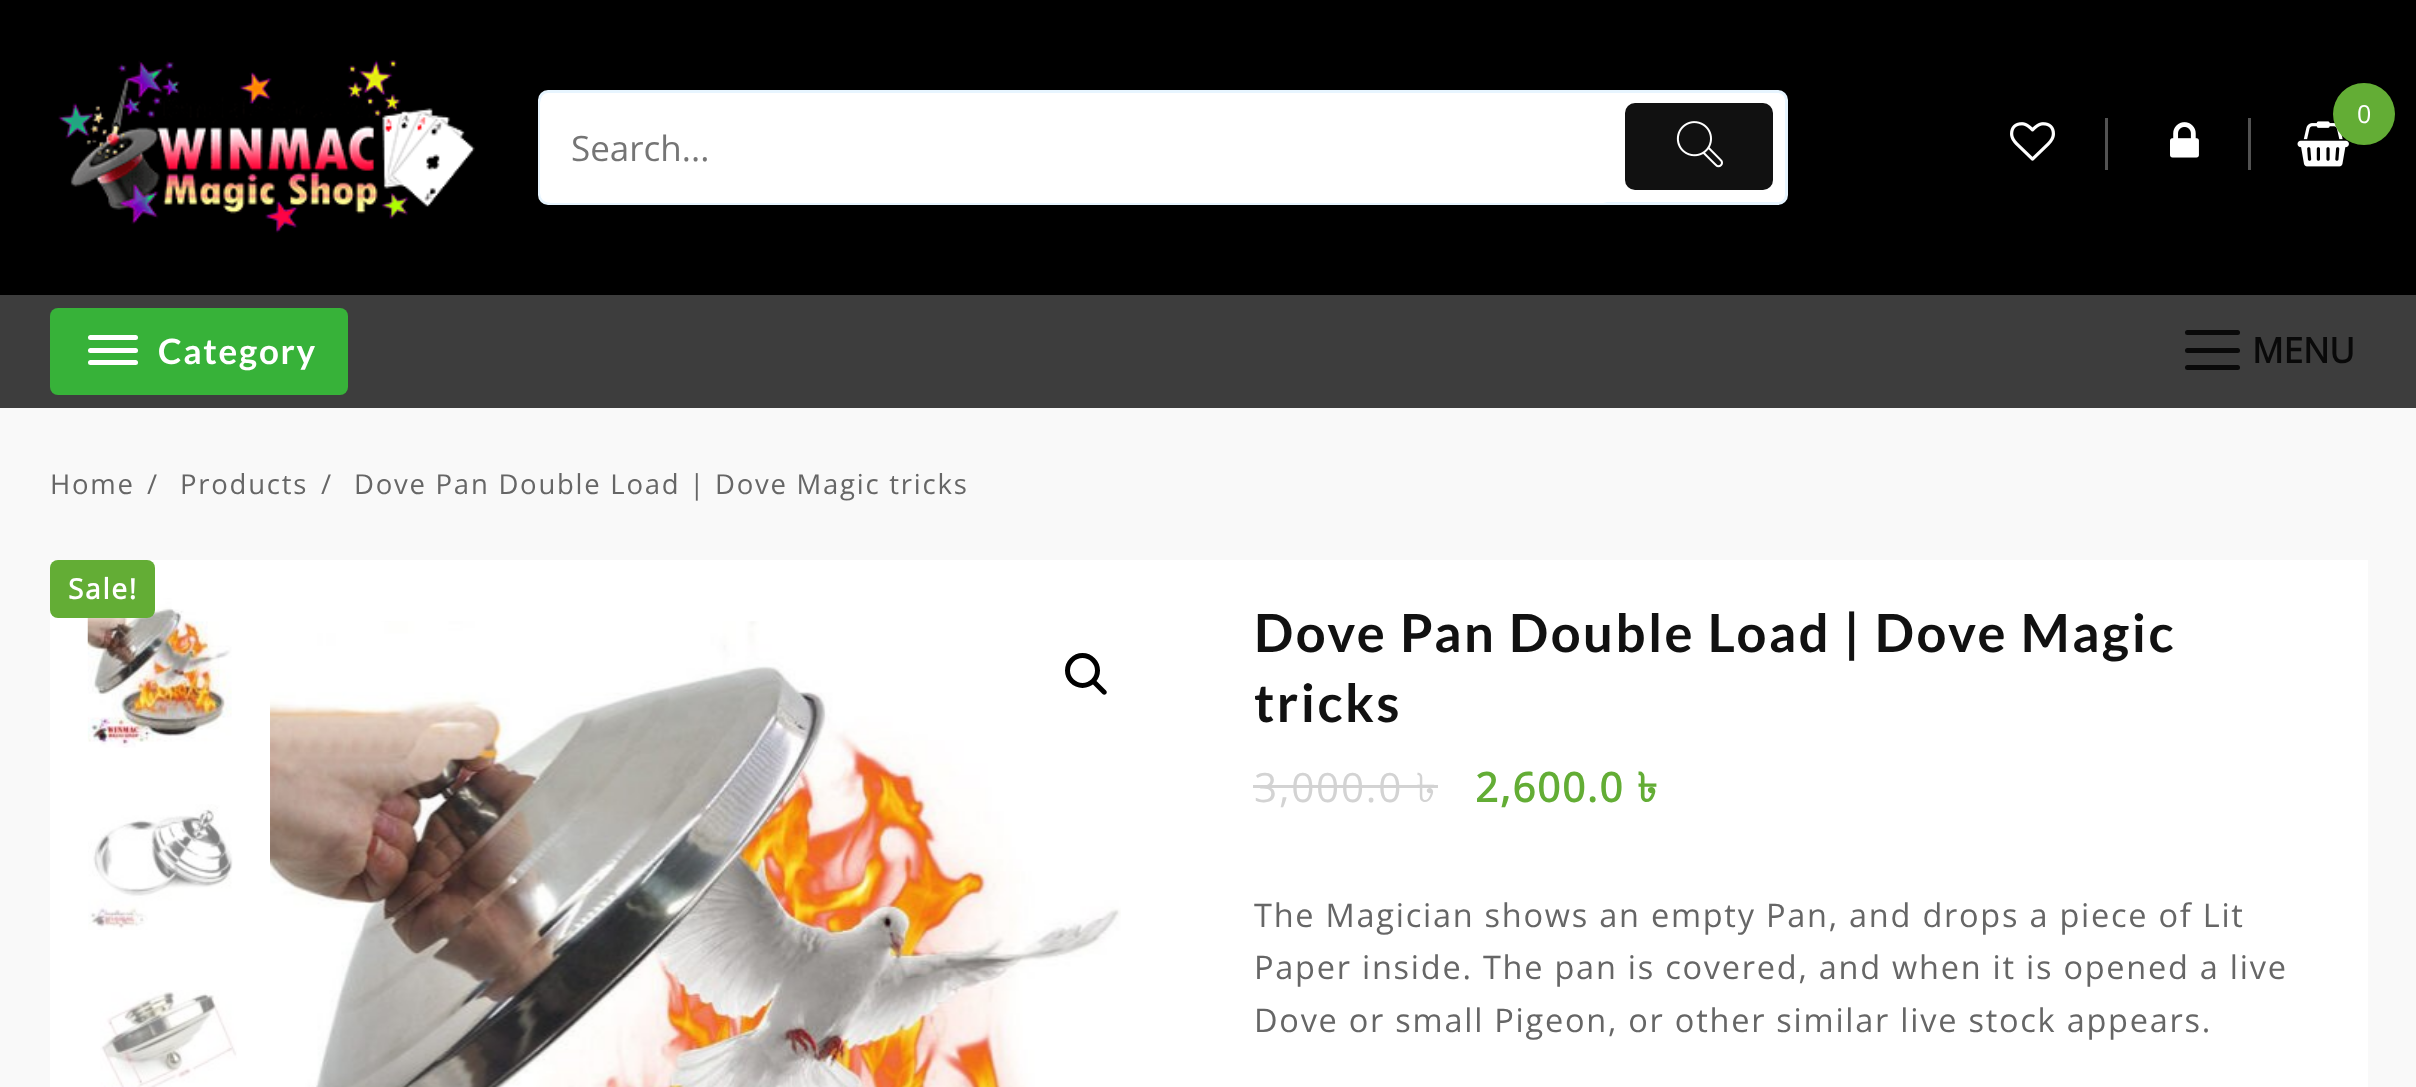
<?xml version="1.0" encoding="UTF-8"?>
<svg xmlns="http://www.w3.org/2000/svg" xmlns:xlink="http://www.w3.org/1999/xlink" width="2416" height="1087">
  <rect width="100%" height="100%" fill="#f9f9f9" />
  <rect width="2416" height="295" fill="#000000" />
  <image x="58" y="60" width="417" height="173" xlink:href="image1.png" />
  <image x="2297" y="121" width="52" height="46" xlink:href="image2.png" />
  <circle cx="2364" cy="114" r="31" fill="#63ad35" />
  <image x="2010" y="122" width="45" height="39" xlink:href="image3.png" />
  <rect x="2105" y="118" width="3" height="52" fill="#525252" />
  <image x="2170" y="122" width="29" height="36" xlink:href="image4.png" />
  <rect x="2248" y="118" width="3" height="52" fill="#525252" />
  <rect x="539.5" y="91.5" width="1247" height="112" rx="8.5" fill="#ffffff" stroke="#e7f5ff" stroke-width="3" />
  <rect x="540" y="93" width="1073" height="110" rx="10" fill="#ffffff" />
  <rect x="1625" y="103" width="148" height="87" rx="10" fill="#111111" />
  <image x="1676" y="121" width="47" height="47" xlink:href="image5.png" />
  <rect y="295" width="2416" height="113" fill="#3d3d3d" />
  <rect x="50" y="308" width="298" height="87" rx="8" fill="#37b239" />
  <rect x="88" y="335" width="50" height="5" rx="2.5" fill="#ffffff" />
  <rect x="88" y="348" width="50" height="5" rx="2.5" fill="#ffffff" />
  <rect x="88" y="360" width="50" height="5" rx="2.5" fill="#ffffff" />
  <rect x="2185" y="330" width="55" height="5" rx="2.5" fill="#090909" />
  <rect x="2185" y="348" width="55" height="5" rx="2.5" fill="#090909" />
  <rect x="2185" y="365" width="55" height="5" rx="2.5" fill="#090909" />
  <rect x="50" y="560" width="2318" height="527" fill="#ffffff" />
  <image x="87" y="598" width="145" height="150" xlink:href="image6.png" />
  <rect x="50" y="560" width="105" height="58" rx="8" fill="#63ad35" />
  <image x="88" y="804" width="145" height="126" xlink:href="image7.png" />
  <image x="100" y="990" width="137" height="97" xlink:href="image8.png" />
  <image x="270" y="621" width="851" height="466" xlink:href="image9.png" />
  <circle cx="1082.5" cy="670.5" r="15" fill="none" stroke="#000000" stroke-width="5" />
  <path d="M 1092 680 c 1 -1 2.5 -1 3.5 0 l 10.5 10.5 c 1 1 1 2.5 0 3.5 c -1 1 -2.5 1 -3.5 0 l -10.5 -10.5 c -1 -1 -1 -2.5 0 -3.5 z" fill="#000000" />
  <rect x="1253" y="785" width="162" height="3" fill="#d3d3d3" />
  <rect x="1415" y="785" width="23" height="3" fill="#d3d3d3" />
  <text x="2357" y="123" style="font-family: Open Sans; font-size: 25px; letter-spacing: 1.75px; fill: #ffffff">0</text>
  <text x="571" y="161" style="font-family: Open Sans; font-size: 35px; fill: #757575">Search...</text>
  <text x="158" y="364" style="font-family: Lato; font-size: 35px; font-weight: bold; letter-spacing: 1.75px; fill: #ffffff">Category</text>
  <text x="2252" y="363" style="font-family: Open Sans; font-size: 35px; font-weight: bold; fill: #090909">MENU</text>
  <text x="50" y="494" style="font-family: Open Sans; font-size: 27.5px; letter-spacing: 1.75px; fill: #666666">Home</text>
  <text x="147" y="494" style="font-family: Open Sans; font-size: 27.5px; letter-spacing: 1.75px; fill: #666666">/</text>
  <text x="180" y="494" style="font-family: Open Sans; font-size: 27.5px; letter-spacing: 1.75px; fill: #666666">Products</text>
  <text x="321" y="494" style="font-family: Open Sans; font-size: 27.5px; letter-spacing: 1.75px; fill: #666666">/</text>
  <text x="354" y="494" style="font-family: Open Sans; font-size: 27.5px; letter-spacing: 1.75px; fill: #666666">Dove Pan Double Load | Dove Magic tricks</text>
  <text x="68" y="599" style="font-family: Open Sans; font-size: 28px; font-weight: bold; letter-spacing: 1.75px; fill: #ffffff">Sale!</text>
  <text x="1254" y="652" style="font-family: Lato; font-size: 52.5px; font-weight: bold; letter-spacing: 2.5px; fill: #111111">Dove Pan Double Load | Dove Magic</text>
  <text x="1254" y="722" style="font-family: Lato; font-size: 52.5px; font-weight: bold; letter-spacing: 2.5px; fill: #111111">tricks</text>
  <text x="1254" y="802" style="font-family: Open Sans; font-size: 40.5px; letter-spacing: 1.75px; fill: #d3d3d3">3,000.0</text>
  <text x="1416" y="802" style="font-family: Lohit Bengali; font-size: 40.5px; letter-spacing: 1.75px; fill: #d3d3d3">৳</text>
  <text x="1475" y="802" style="font-family: Open Sans; font-size: 40.5px; font-weight: bold; letter-spacing: 1.75px; fill: #63ad35">2,600.0</text>
  <text x="1637" y="802" style="font-family: Lohit Bengali; font-size: 40.5px; font-weight: bold; letter-spacing: 1.75px; fill: #63ad35">৳</text>
  <text x="1254" y="927" style="font-family: Open Sans; font-size: 32.5px; letter-spacing: 1.75px; fill: #666666">The Magician shows an empty Pan, and drops a piece of Lit</text>
  <text x="1254" y="979" style="font-family: Open Sans; font-size: 32.5px; letter-spacing: 1.75px; fill: #666666">Paper inside. The pan is covered, and when it is opened a live</text>
  <text x="1254" y="1032" style="font-family: Open Sans; font-size: 32.5px; letter-spacing: 1.75px; fill: #666666">Dove or small Pigeon, or other similar live stock appears.</text>
</svg>
